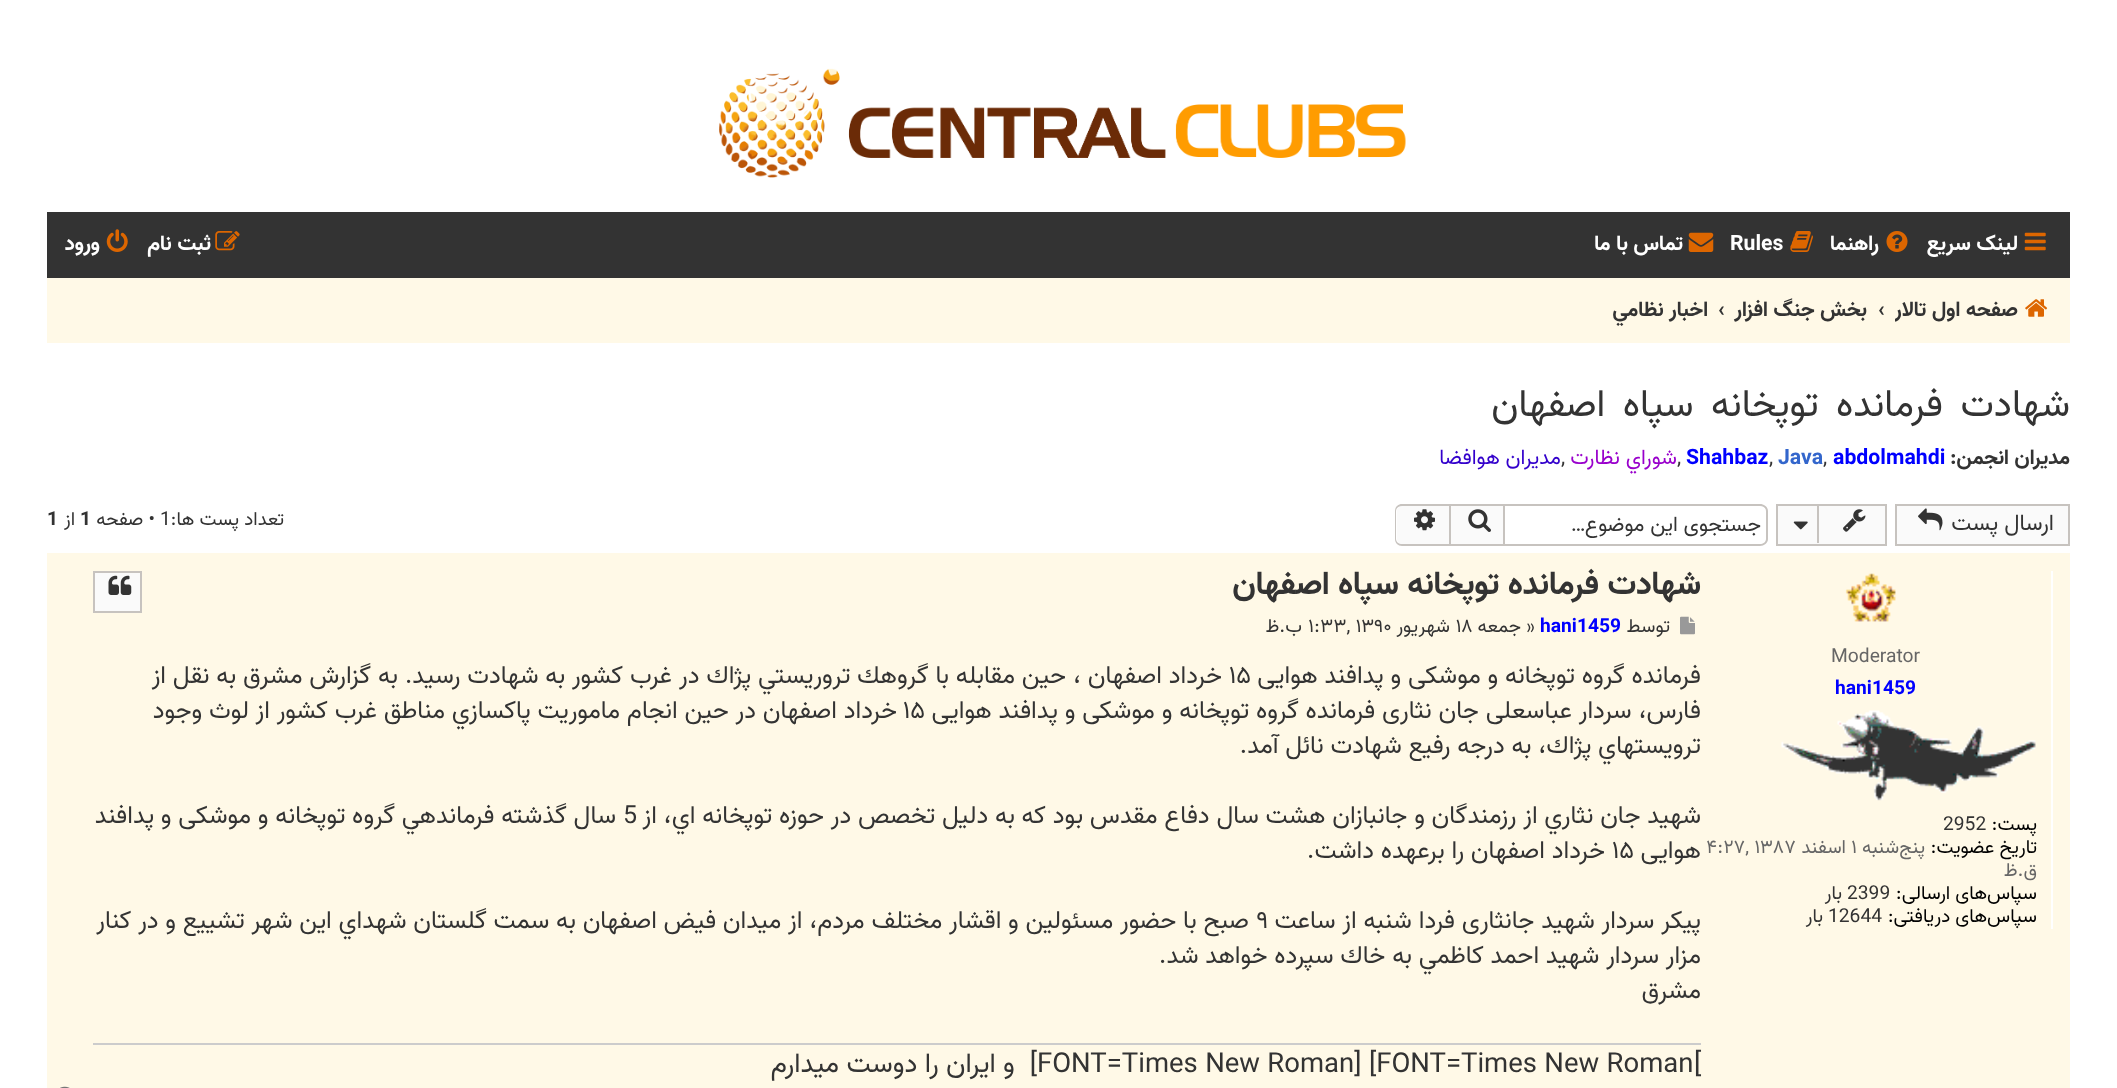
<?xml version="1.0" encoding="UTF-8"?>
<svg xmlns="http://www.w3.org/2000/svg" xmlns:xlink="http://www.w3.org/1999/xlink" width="2117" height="1088">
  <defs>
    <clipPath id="clip1"><rect x="1895" y="289" width="158" height="45" /></clipPath>
  </defs>
  <rect width="100%" height="100%" fill="#ffffff" />
  <image x="719" y="68" width="687" height="110" xlink:href="image1.png" />
  <rect x="47" y="212" width="2023" height="66" fill="#333333" />
  <image x="2024" y="232" width="22" height="19" xlink:href="image2.png" />
  <image x="1886" y="231" width="22" height="21" xlink:href="image3.png" />
  <image x="1790" y="231" width="23" height="21" xlink:href="image4.png" />
  <image x="1688" y="232" width="26" height="20" xlink:href="image5.png" />
  <image x="215" y="231" width="25" height="20" xlink:href="image6.png" />
  <image x="106" y="229" width="22" height="23" xlink:href="image7.png" />
  <rect x="47" y="278" width="2023" height="65" fill="#fff9e7" />
  <image x="2025" y="299" width="23" height="18" xlink:href="image8.png" />
  <rect x="1896" y="505" width="173" height="40" fill="#fafafa" stroke="#c7c3bf" stroke-width="2" />
  <image x="1918" y="508" width="25" height="23" xlink:href="image9.png" />
  <rect x="1777" y="505" width="109" height="40" fill="#fafafa" stroke="#c7c3bf" stroke-width="2" />
  <image x="1843" y="509" width="23" height="23" xlink:href="image10.png" />
  <rect x="1817" y="506" width="2" height="37" fill="#c7c3bf" />
  <image x="1793" y="521" width="15" height="9" xlink:href="image11.png" />
  <path d="M 1505 504 h 255 c 4 0 8 3 8 7 v 28 c 0 4 -4 7 -8 7 h -255 z m 0 2 h 255 c 3 0 6 2 6 5 v 28 c 0 3 -3 5 -6 5 h -255 z" fill="#c7c3bf" fill-rule="evenodd" />
  <rect x="1450" y="505" width="54" height="40" fill="#fafafa" stroke="#c7c3bf" stroke-width="2" />
  <image x="1468" y="509" width="23" height="23" xlink:href="image12.png" />
  <path d="M 1402 506 h 47 v 38 h -47 c -3 0 -5 -2 -5 -5 v -28 c 0 -3 2 -5 5 -5 z" fill="#fafafa" />
  <path d="M 1402 504 h 47 v 42 h -47 c -4 0 -7 -3 -7 -7 v -28 c 0 -4 3 -7 7 -7 z m 0 2 h 47 v 38 h -47 c -3 0 -6 -2 -6 -5 v -28 c 0 -3 3 -5 6 -5 z" fill="#c7c3bf" fill-rule="evenodd" />
  <image x="1414" y="509" width="21" height="22" xlink:href="image13.png" />
  <rect x="47" y="553" width="2023" height="535" fill="#fff9e7" />
  <rect x="2051" y="571" width="2" height="358" fill="#ffffff" />
  <image x="1845" y="573" width="51" height="49" xlink:href="image14.png" />
  <image x="1781" y="710" width="255" height="91" xlink:href="image15.png" />
  <rect x="94" y="572" width="47" height="40" fill="#fafafa" stroke="#c7c3bf" stroke-width="2" />
  <image x="108" y="575" width="24" height="20" xlink:href="image16.png" />
  <image x="1680" y="616" width="15" height="19" xlink:href="image17.png" />
  <rect x="93" y="1043" width="1608" height="2" fill="#cccccc" />
  <image x="60" y="1086" width="10" height="2" xlink:href="image18.png" />
  <text x="2018" y="250" style="font-family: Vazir; font-size: 21.25px; font-weight: bold; direction: rtl; fill: #ffffff">لینک سریع</text>
  <text x="1879" y="250" style="font-family: Vazir; font-size: 21.25px; font-weight: bold; direction: rtl; fill: #ffffff">راهنما</text>
  <text x="1730" y="250" style="font-family: Vazir; font-size: 21.25px; font-weight: bold; fill: #ffffff">Rules</text>
  <text x="1683" y="250" style="font-family: Vazir; font-size: 21.25px; font-weight: bold; direction: rtl; fill: #ffffff">تماس با ما</text>
  <text x="211" y="250" style="font-family: Vazir; font-size: 21.25px; font-weight: bold; direction: rtl; fill: #ffffff">ثبت نام</text>
  <text x="100" y="250" style="font-family: Vazir; font-size: 21.25px; font-weight: bold; direction: rtl; fill: #ffffff">ورود</text>
  <g clip-path="url(#clip1)">
    <text x="2018" y="316" style="font-family: Vazir; font-size: 21.25px; font-weight: bold; direction: rtl; fill: #333333">صفحه اول تالار</text>
  </g>
  <text x="1878" y="316" style="font-family: Vazir; font-size: 21.25px; font-weight: bold; fill: #333333">‹</text>
  <text x="1867" y="316" style="font-family: Vazir; font-size: 21.25px; font-weight: bold; direction: rtl; fill: #333333">بخش جنگ افزار</text>
  <text x="1718" y="316" style="font-family: Vazir; font-size: 21.25px; font-weight: bold; fill: #333333">‹</text>
  <text x="1708" y="316" style="font-family: Vazir; font-size: 21.25px; font-weight: bold; direction: rtl; fill: #333333">اخبار نظامي</text>
  <text x="2070" y="416" word-spacing="7" style="font-family: Vazir; font-size: 38.5px; direction: rtl; fill: #333333">شهادت فرمانده توپخانه سپاه اصفهان</text>
  <text x="2070" y="464" style="font-family: Vazir; font-size: 21.25px; font-weight: bold; direction: rtl; fill: #333333">مدیران انجمن:</text>
  <text x="1833" y="464" style="font-family: Vazir; font-size: 21.25px; font-weight: bold; fill: #0000ff">abdolmahdi</text>
  <text x="1823" y="464" style="font-family: Vazir; font-size: 21.25px; fill: #333333">,</text>
  <text x="1778" y="464" style="font-family: Vazir; font-size: 21.25px; font-weight: bold; fill: #3366cc">Java</text>
  <text x="1769" y="464" style="font-family: Vazir; font-size: 21.25px; fill: #333333">,</text>
  <text x="1686" y="464" style="font-family: Vazir; font-size: 21.25px; font-weight: bold; fill: #0000ff">Shahbaz</text>
  <text x="1677" y="464" style="font-family: Vazir; font-size: 21.25px; fill: #333333">,</text>
  <text x="1677" y="464" style="font-family: Vazir; font-size: 21.25px; direction: rtl; fill: #9900cc">شوراي نظارت</text>
  <text x="1561" y="464" style="font-family: Vazir; font-size: 21.25px; fill: #333333">,</text>
  <text x="1561" y="464" style="font-family: Vazir; font-size: 21.25px; direction: rtl; fill: #3300cc">مديران هوافضا</text>
  <text x="2054" y="530" style="font-family: Vazir; font-size: 22.75px; direction: rtl; fill: #333333">ارسال پست</text>
  <text x="1761" y="531" style="font-family: Vazir; font-size: 21.25px; direction: rtl; fill: #333333">جستجوی این موضوع…</text>
  <text x="284" y="525" style="font-family: Vazir; font-size: 19.25px; direction: rtl; fill: #333333">تعداد پست ها:</text>
  <text x="160" y="525" style="font-family: Vazir; font-size: 19.25px; fill: #333333">1</text>
  <text x="155" y="525" style="font-family: Vazir; font-size: 19.25px; direction: rtl; fill: #333333">• صفحه</text>
  <text x="80" y="525" style="font-family: Vazir; font-size: 19.25px; font-weight: bold; fill: #333333">1</text>
  <text x="75" y="525" style="font-family: Vazir; font-size: 19.25px; direction: rtl; fill: #333333">از</text>
  <text x="47" y="525" style="font-family: Vazir; font-size: 19.25px; font-weight: bold; fill: #333333">1</text>
  <text x="1831" y="662" style="font-family: Vazir; font-size: 19.25px; fill: #666666">Moderator</text>
  <text x="1835" y="694" style="font-family: Vazir; font-size: 19.25px; font-weight: bold; fill: #0000ff">hani1459</text>
  <text x="2037" y="830" style="font-family: Vazir; font-size: 19.25px; direction: rtl; fill: #000000">پست:</text>
  <text x="1943" y="830" style="font-family: Vazir; font-size: 19.25px; fill: #333333">2952</text>
  <text x="2037" y="853" style="font-family: Vazir; font-size: 19.25px; direction: rtl; fill: #000000">تاریخ عضویت:</text>
  <text x="1925" y="853" style="font-family: Vazir; font-size: 19.25px; direction: rtl; fill: #666666">پنج‌شنبه</text>
  <text x="1851" y="853" style="font-family: Vazir; font-size: 19.25px; fill: #666666">۱</text>
  <text x="1846" y="853" style="font-family: Vazir; font-size: 19.25px; direction: rtl; fill: #666666">اسفند</text>
  <text x="1706" y="853" style="font-family: Vazir; font-size: 19.25px; fill: #666666">۴:۲۷, ۱۳۸۷</text>
  <text x="2037" y="876" style="font-family: Vazir; font-size: 19.25px; direction: rtl; fill: #666666">ق.ظ</text>
  <text x="2037" y="899" style="font-family: Vazir; font-size: 19.25px; direction: rtl; fill: #000000">سپاس‌های ارسالی:</text>
  <text x="1847" y="899" style="font-family: Vazir; font-size: 19.25px; fill: #333333">2399</text>
  <text x="1842" y="899" style="font-family: Vazir; font-size: 19.25px; direction: rtl; fill: #333333">بار</text>
  <text x="2037" y="922" style="font-family: Vazir; font-size: 19.25px; direction: rtl; fill: #000000">سپاس‌های دریافتی:</text>
  <text x="1828" y="922" style="font-family: Vazir; font-size: 19.25px; fill: #333333">12644</text>
  <text x="1823" y="922" style="font-family: Vazir; font-size: 19.25px; direction: rtl; fill: #333333">بار</text>
  <text x="1701" y="594" style="font-family: Vazir; font-size: 32.75px; font-weight: bold; direction: rtl; fill: #333333">شهادت فرمانده توپخانه سپاه اصفهان</text>
  <text x="1670" y="632" style="font-family: Vazir; font-size: 19.25px; direction: rtl; fill: #333333">توسط</text>
  <text x="1540" y="632" style="font-family: Vazir; font-size: 19.25px; font-weight: bold; fill: #0000ff">hani1459</text>
  <text x="1526" y="632" style="font-family: Vazir; font-size: 19.25px; fill: #333333">»</text>
  <text x="1521" y="632" style="font-family: Vazir; font-size: 19.25px; direction: rtl; fill: #333333">جمعه</text>
  <text x="1456" y="632" style="font-family: Vazir; font-size: 19.25px; fill: #333333">۱۸</text>
  <text x="1450" y="632" style="font-family: Vazir; font-size: 19.25px; direction: rtl; fill: #333333">شهریور</text>
  <text x="1308" y="632" style="font-family: Vazir; font-size: 19.25px; fill: #333333">۱:۳۳, ۱۳۹۰</text>
  <text x="1302" y="632" style="font-family: Vazir; font-size: 19.25px; direction: rtl; fill: #333333">ب.ظ</text>
  <text x="1701" y="683" style="font-family: Vazir; font-size: 25.05px; direction: rtl; fill: #333333">فرمانده گروه توپخانه و موشکی و پدافند هوایی</text>
  <text x="1229" y="683" style="font-family: Vazir; font-size: 25.05px; fill: #333333">۱۵</text>
  <text x="1222" y="683" style="font-family: Vazir; font-size: 25.05px; direction: rtl; fill: #333333">خرداد اصفهان ، حين مقابله با گروهك تروريستي پژاك در غرب كشور به شهادت رسيد. به گزارش مشرق به نقل از</text>
  <text x="1701" y="718" style="font-family: Vazir; font-size: 25.05px; direction: rtl; fill: #333333">فارس، سردار عباسعلی جان نثاری فرمانده گروه توپخانه و موشکی و پدافند هوایی</text>
  <text x="903" y="718" style="font-family: Vazir; font-size: 25.05px; fill: #333333">۱۵</text>
  <text x="897" y="718" style="font-family: Vazir; font-size: 25.05px; direction: rtl; fill: #333333">خرداد اصفهان در حين انجام ماموريت پاكسازي مناطق غرب كشور از لوث وجود</text>
  <text x="1701" y="753" style="font-family: Vazir; font-size: 25.05px; direction: rtl; fill: #333333">ترويستهاي پژاك، به درجه رفيع شهادت نائل آمد.</text>
  <text x="1701" y="823" style="font-family: Vazir; font-size: 25.05px; direction: rtl; fill: #333333">شهيد جان نثاري از رزمندگان و جانبازان هشت سال دفاع مقدس بود كه به دليل تخصص در حوزه توپخانه اي، از</text>
  <text x="623" y="823" style="font-family: Vazir; font-size: 25.05px; fill: #333333">5</text>
  <text x="616" y="823" style="font-family: Vazir; font-size: 25.05px; direction: rtl; fill: #333333">سال گذشته فرماندهي گروه توپخانه و موشکی و پدافند</text>
  <text x="1701" y="858" style="font-family: Vazir; font-size: 25.05px; direction: rtl; fill: #333333">هوایی</text>
  <text x="1612" y="858" style="font-family: Vazir; font-size: 25.05px; fill: #333333">۱۵</text>
  <text x="1605" y="858" style="font-family: Vazir; font-size: 25.05px; direction: rtl; fill: #333333">خرداد اصفهان را برعهده داشت.</text>
  <text x="1701" y="928" style="font-family: Vazir; font-size: 25.05px; direction: rtl; fill: #333333">پیکر سردار شهید جانثاری فردا شنبه از ساعت</text>
  <text x="1256" y="928" style="font-family: Vazir; font-size: 25.05px; fill: #333333">۹</text>
  <text x="1249" y="928" style="font-family: Vazir; font-size: 25.05px; direction: rtl; fill: #333333">صبح با حضور مسئولین و اقشار مختلف مردم، از ميدان فیض اصفهان به سمت گلستان شهداي اين شهر تشييع و در كنار</text>
  <text x="1701" y="963" style="font-family: Vazir; font-size: 25.05px; direction: rtl; fill: #333333">مزار سردار شهيد احمد كاظمي به خاك سپرده خواهد شد.</text>
  <text x="1701" y="998" style="font-family: Vazir; font-size: 25.05px; direction: rtl; fill: #333333">مشرق</text>
  <text x="1694" y="1072" style="font-family: Vazir; font-size: 27.5px; fill: #333333">[</text>
  <text x="1037" y="1072" style="font-family: Vazir; font-size: 27.5px; fill: #333333">FONT=Times New Roman] [FONT=Times New Roman</text>
  <text x="1037" y="1072" style="font-family: Vazir; font-size: 27.5px; direction: rtl; fill: #333333" xml:space="preserve">]  و ایران را دوست میدارم</text>
</svg>
